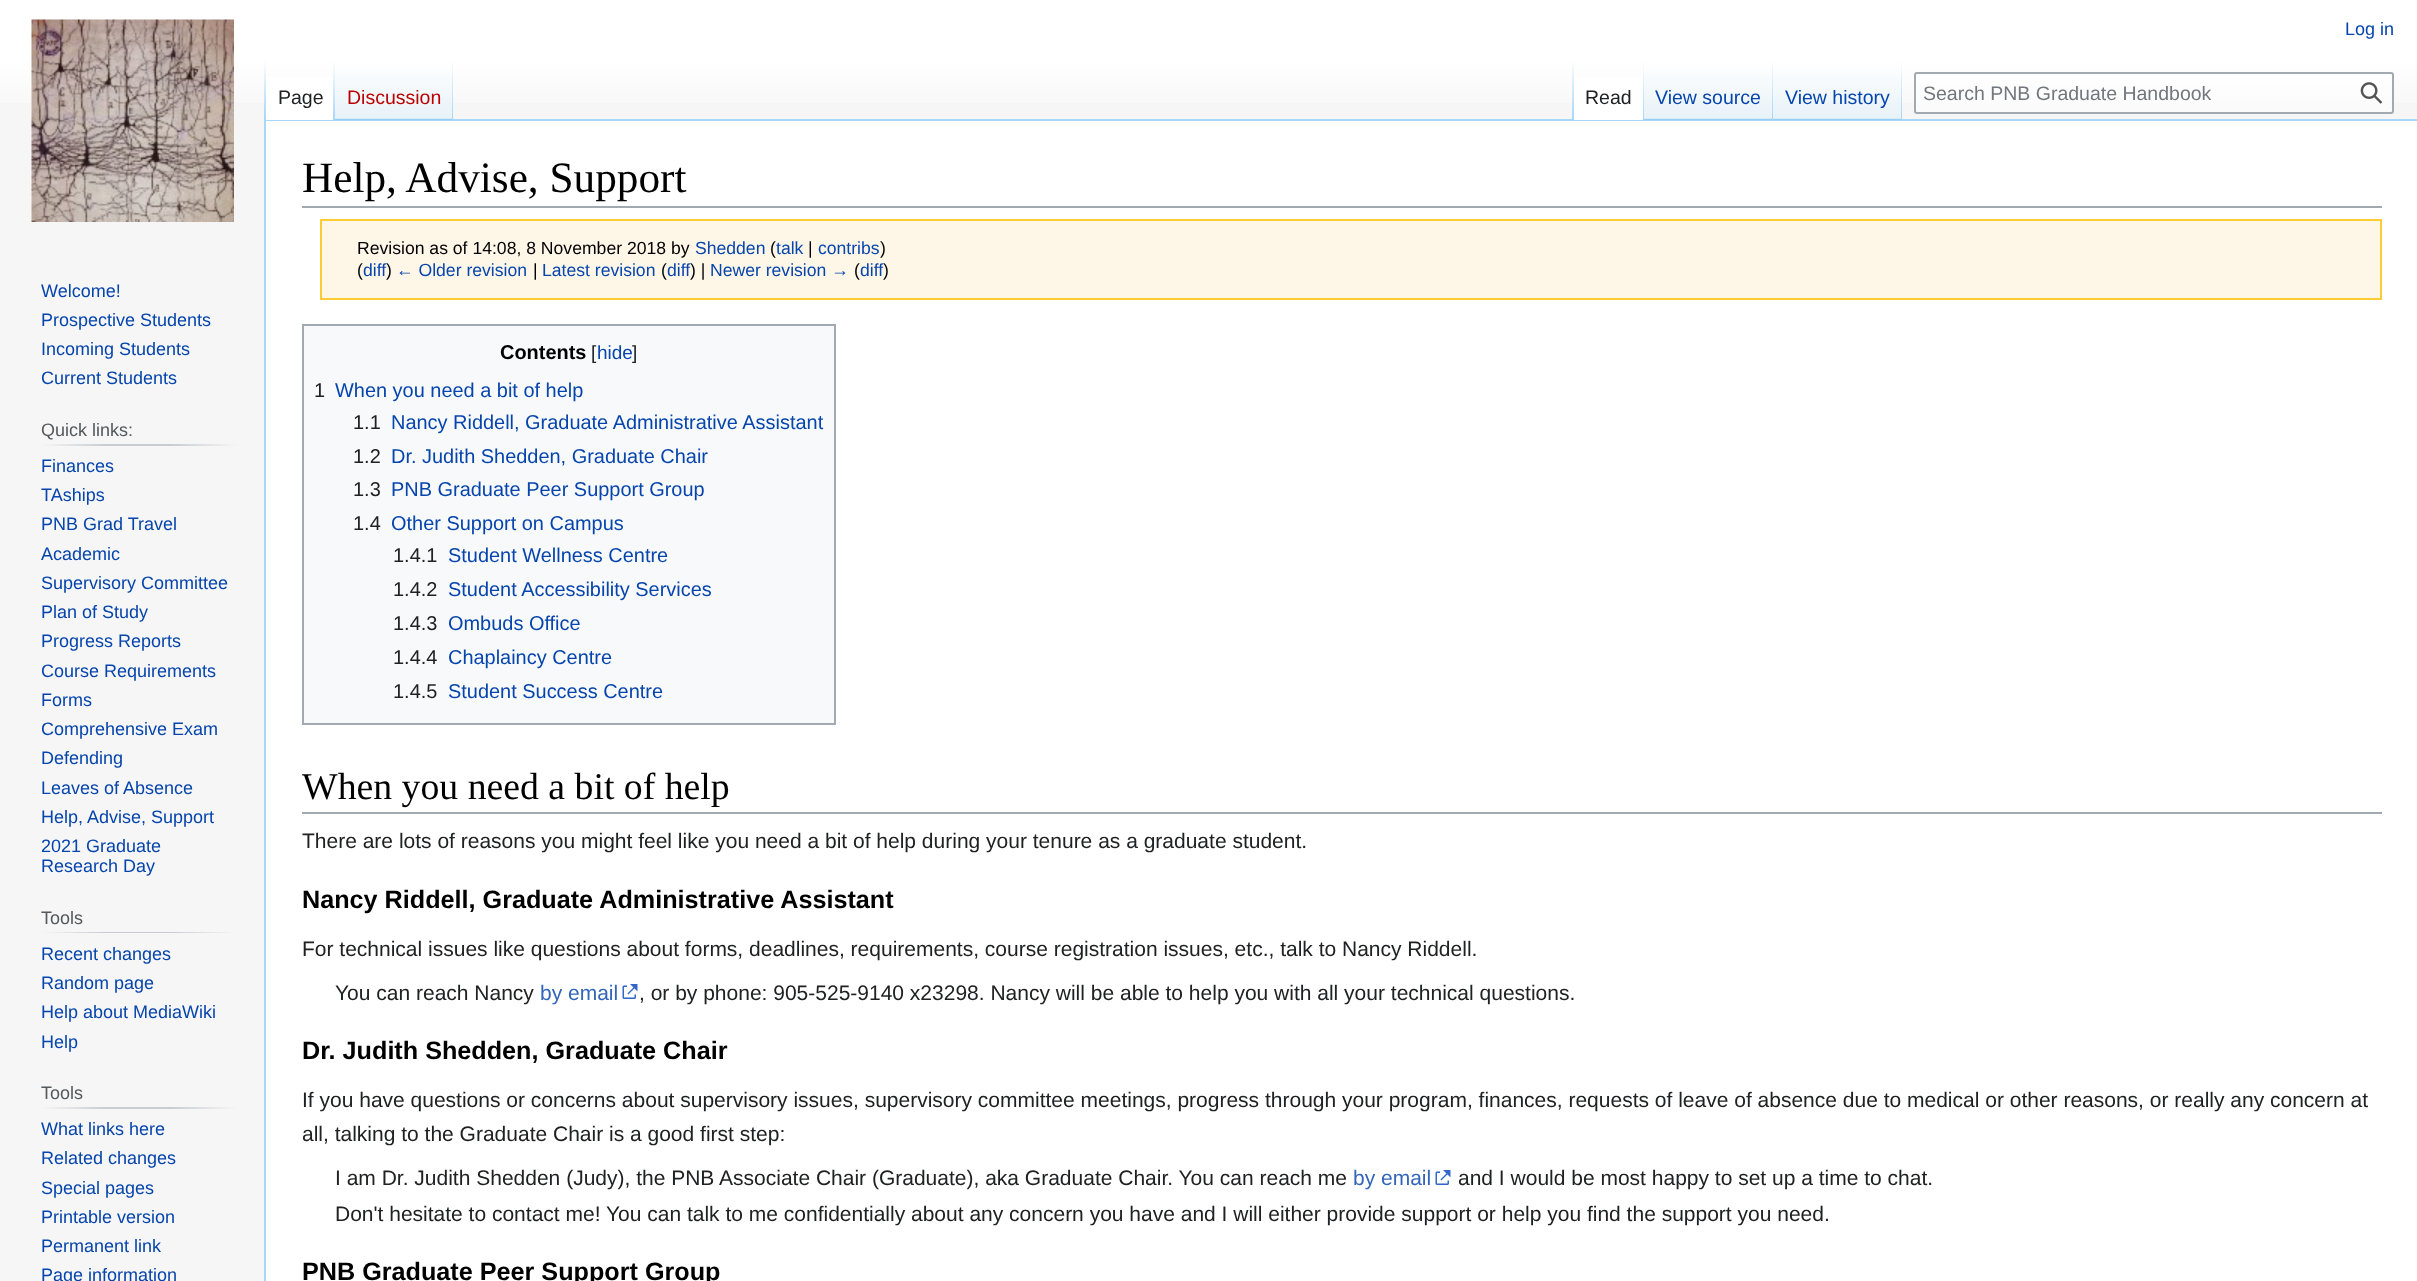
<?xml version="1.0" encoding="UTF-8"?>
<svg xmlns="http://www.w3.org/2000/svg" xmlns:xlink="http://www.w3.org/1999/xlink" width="2417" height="1281">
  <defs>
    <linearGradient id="g1" gradientUnits="userSpaceOnUse" x1="1209" y1="0" x2="1209" y2="120"><stop offset="0.5" stop-color="#ffffff" /><stop offset="1" stop-color="#f6f6f6" /></linearGradient>
    <linearGradient id="g2" gradientUnits="userSpaceOnUse" x1="265" y1="60" x2="265" y2="120"><stop offset="0" stop-color="#a7d7f9" stop-opacity="0" /><stop offset="1" stop-color="#a7d7f9" /></linearGradient>
    <linearGradient id="g3" gradientUnits="userSpaceOnUse" x1="334" y1="60" x2="334" y2="120"><stop offset="0" stop-color="#ffffff" /><stop offset="1" stop-color="#a7d7f9" /></linearGradient>
    <linearGradient id="g4" gradientUnits="userSpaceOnUse" x1="394" y1="120" x2="394" y2="60"><stop offset="0" stop-color="#77c1f6" /><stop offset="0.03" stop-color="#e8f2f8" /><stop offset="1" stop-color="#ffffff" /></linearGradient>
    <linearGradient id="g5" gradientUnits="userSpaceOnUse" x1="452" y1="60" x2="452" y2="120"><stop offset="0" stop-color="#a7d7f9" stop-opacity="0" /><stop offset="1" stop-color="#a7d7f9" /></linearGradient>
    <linearGradient id="g6" gradientUnits="userSpaceOnUse" x1="1573" y1="60" x2="1573" y2="120"><stop offset="0" stop-color="#a7d7f9" stop-opacity="0" /><stop offset="1" stop-color="#a7d7f9" /></linearGradient>
    <linearGradient id="g7" gradientUnits="userSpaceOnUse" x1="1643" y1="60" x2="1643" y2="120"><stop offset="0" stop-color="#ffffff" /><stop offset="1" stop-color="#a7d7f9" /></linearGradient>
    <linearGradient id="g8" gradientUnits="userSpaceOnUse" x1="1709" y1="120" x2="1709" y2="60"><stop offset="0" stop-color="#77c1f6" /><stop offset="0.03" stop-color="#e8f2f8" /><stop offset="1" stop-color="#ffffff" /></linearGradient>
    <linearGradient id="g9" gradientUnits="userSpaceOnUse" x1="1772" y1="60" x2="1772" y2="120"><stop offset="0" stop-color="#a7d7f9" stop-opacity="0" /><stop offset="1" stop-color="#a7d7f9" /></linearGradient>
    <linearGradient id="g10" gradientUnits="userSpaceOnUse" x1="1838" y1="120" x2="1838" y2="60"><stop offset="0" stop-color="#77c1f6" /><stop offset="0.03" stop-color="#e8f2f8" /><stop offset="1" stop-color="#ffffff" /></linearGradient>
    <linearGradient id="g11" gradientUnits="userSpaceOnUse" x1="1901" y1="60" x2="1901" y2="120"><stop offset="0" stop-color="#a7d7f9" stop-opacity="0" /><stop offset="1" stop-color="#a7d7f9" /></linearGradient>
    <linearGradient id="g12" gradientUnits="userSpaceOnUse" x1="41" y1="445" x2="237" y2="445"><stop offset="0" stop-color="#f6f6f6" /><stop offset="0.33" stop-color="#c8ccd1" /><stop offset="0.66" stop-color="#c8ccd1" /><stop offset="1" stop-color="#f6f6f6" /></linearGradient>
    <linearGradient id="g13" gradientUnits="userSpaceOnUse" x1="41" y1="932" x2="237" y2="932"><stop offset="0" stop-color="#f6f6f6" /><stop offset="0.33" stop-color="#c8ccd1" /><stop offset="0.66" stop-color="#c8ccd1" /><stop offset="1" stop-color="#f6f6f6" /></linearGradient>
    <linearGradient id="g14" gradientUnits="userSpaceOnUse" x1="41" y1="1108" x2="237" y2="1108"><stop offset="0" stop-color="#f6f6f6" /><stop offset="0.33" stop-color="#c8ccd1" /><stop offset="0.66" stop-color="#c8ccd1" /><stop offset="1" stop-color="#f6f6f6" /></linearGradient>
  </defs>
  <rect width="100%" height="100%" fill="#f6f6f6" />
  <rect width="2417" height="103" fill="url(#g1)" />
  <rect x="264" y="119" width="2153" height="2" fill="#a7d7f9" />
  <rect x="264" y="119" width="2" height="1162" fill="#a7d7f9" />
  <rect x="264" y="60" width="2" height="60" fill="url(#g2)" />
  <rect x="266" y="77" width="67" height="43" fill="#ffffff" />
  <rect x="333" y="60" width="2" height="60" fill="url(#g3)" />
  <rect x="335" y="69" width="118" height="51" fill="url(#g4)" />
  <rect x="452" y="60" width="1" height="60" fill="url(#g5)" />
  <rect x="1572" y="60" width="2" height="60" fill="url(#g6)" />
  <rect x="1574" y="77" width="69" height="43" fill="#ffffff" />
  <rect x="1643" y="60" width="1" height="60" fill="url(#g7)" />
  <rect x="1644" y="69" width="129" height="51" fill="url(#g8)" />
  <rect x="1772" y="60" width="1" height="60" fill="url(#g9)" />
  <rect x="1773" y="69" width="129" height="51" fill="url(#g10)" />
  <rect x="1901" y="60" width="1" height="60" fill="url(#g11)" />
  <rect x="1915" y="73" width="478" height="40" rx="2" fill="#ffffff" fill-opacity="0.5" stroke="#a2a9b1" stroke-width="2" />
  <image x="2360" y="82" width="23" height="22" xlink:href="image1.png" />
  <image x="31" y="19" width="203" height="203" xlink:href="image2.png" />
  <rect x="41" y="444" width="196" height="2" fill="url(#g12)" />
  <rect x="41" y="932" width="196" height="1" fill="url(#g13)" />
  <rect x="41" y="1107" width="196" height="2" fill="url(#g14)" />
  <rect x="266" y="121" width="2151" height="1160" fill="#ffffff" />
  <rect x="302" y="206" width="2080" height="2" fill="#a2a9b1" />
  <rect x="321" y="220" width="2060" height="79" fill="#fef6e7" stroke="#ffcc33" stroke-width="2" />
  <rect x="303" y="325" width="532" height="399" fill="#f8f9fa" stroke="#a2a9b1" stroke-width="2" />
  <rect x="302" y="812" width="2080" height="2" fill="#a2a9b1" />
  <image x="622" y="984" width="16" height="15" xlink:href="image3.png" />
  <image x="1435" y="1170" width="16" height="15" xlink:href="image3.png" />
  <text x="2345" y="35" style="font-family: Liberation Sans; font-size: 18px; fill: #0645ad">Log in</text>
  <text x="278" y="104" style="font-family: Liberation Sans; font-size: 19.5px; fill: #202122">Page</text>
  <text x="347" y="104" style="font-family: Liberation Sans; font-size: 19.5px; fill: #ba0000">Discussion</text>
  <text x="1585" y="104" style="font-family: Liberation Sans; font-size: 19.5px; fill: #202122">Read</text>
  <text x="1655" y="104" style="font-family: Liberation Sans; font-size: 19.5px; fill: #0645ad">View source</text>
  <text x="1785" y="104" style="font-family: Liberation Sans; font-size: 19.5px; fill: #0645ad">View history</text>
  <text x="1923" y="100" style="font-family: Liberation Sans; font-size: 19.5px; fill: #72777d">Search PNB Graduate Handbook</text>
  <text x="41" y="297" style="font-family: Liberation Sans; font-size: 18px; fill: #0645ad">Welcome!</text>
  <text x="41" y="326" style="font-family: Liberation Sans; font-size: 18px; fill: #0645ad">Prospective Students</text>
  <text x="41" y="355" style="font-family: Liberation Sans; font-size: 18px; fill: #0645ad">Incoming Students</text>
  <text x="41" y="384" style="font-family: Liberation Sans; font-size: 18px; fill: #0645ad">Current Students</text>
  <text x="41" y="436" style="font-family: Liberation Sans; font-size: 18px; fill: #54595d">Quick links:</text>
  <text x="41" y="472" style="font-family: Liberation Sans; font-size: 18px; fill: #0645ad">Finances</text>
  <text x="41" y="501" style="font-family: Liberation Sans; font-size: 18px; fill: #0645ad">TAships</text>
  <text x="41" y="530" style="font-family: Liberation Sans; font-size: 18px; fill: #0645ad">PNB Grad Travel</text>
  <text x="41" y="560" style="font-family: Liberation Sans; font-size: 18px; fill: #0645ad">Academic</text>
  <text x="41" y="589" style="font-family: Liberation Sans; font-size: 18px; fill: #0645ad">Supervisory Committee</text>
  <text x="41" y="618" style="font-family: Liberation Sans; font-size: 18px; fill: #0645ad">Plan of Study</text>
  <text x="41" y="647" style="font-family: Liberation Sans; font-size: 18px; fill: #0645ad">Progress Reports</text>
  <text x="41" y="677" style="font-family: Liberation Sans; font-size: 18px; fill: #0645ad">Course Requirements</text>
  <text x="41" y="706" style="font-family: Liberation Sans; font-size: 18px; fill: #0645ad">Forms</text>
  <text x="41" y="735" style="font-family: Liberation Sans; font-size: 18px; fill: #0645ad">Comprehensive Exam</text>
  <text x="41" y="764" style="font-family: Liberation Sans; font-size: 18px; fill: #0645ad">Defending</text>
  <text x="41" y="794" style="font-family: Liberation Sans; font-size: 18px; fill: #0645ad">Leaves of Absence</text>
  <text x="41" y="823" style="font-family: Liberation Sans; font-size: 18px; fill: #0645ad">Help, Advise, Support</text>
  <text x="41" y="852" style="font-family: Liberation Sans; font-size: 18px; fill: #0645ad">2021 Graduate</text>
  <text x="41" y="872" style="font-family: Liberation Sans; font-size: 18px; fill: #0645ad">Research Day</text>
  <text x="41" y="924" style="font-family: Liberation Sans; font-size: 18px; fill: #54595d">Tools</text>
  <text x="41" y="960" style="font-family: Liberation Sans; font-size: 18px; fill: #0645ad">Recent changes</text>
  <text x="41" y="989" style="font-family: Liberation Sans; font-size: 18px; fill: #0645ad">Random page</text>
  <text x="41" y="1018" style="font-family: Liberation Sans; font-size: 18px; fill: #0645ad">Help about MediaWiki</text>
  <text x="41" y="1048" style="font-family: Liberation Sans; font-size: 18px; fill: #0645ad">Help</text>
  <text x="41" y="1099" style="font-family: Liberation Sans; font-size: 18px; fill: #54595d">Tools</text>
  <text x="41" y="1135" style="font-family: Liberation Sans; font-size: 18px; fill: #0645ad">What links here</text>
  <text x="41" y="1164" style="font-family: Liberation Sans; font-size: 18px; fill: #0645ad">Related changes</text>
  <text x="41" y="1194" style="font-family: Liberation Sans; font-size: 18px; fill: #0645ad">Special pages</text>
  <text x="41" y="1223" style="font-family: Liberation Sans; font-size: 18px; fill: #0645ad">Printable version</text>
  <text x="41" y="1252" style="font-family: Liberation Sans; font-size: 18px; fill: #0645ad">Permanent link</text>
  <text x="41" y="1281" style="font-family: Liberation Sans; font-size: 18px; fill: #0645ad">Page information</text>
  <text x="302" y="192" style="font-family: Liberation Serif; font-size: 43.25px; fill: #000000">Help, Advise, Support</text>
  <text x="357" y="254" style="font-family: Liberation Sans; font-size: 17.6px; fill: #000000">Revision as of 14:08, 8 November 2018 by</text>
  <text x="695" y="254" style="font-family: Liberation Sans; font-size: 17.6px; fill: #0645ad">Shedden</text>
  <text x="770" y="254" style="font-family: Liberation Sans; font-size: 17.6px; fill: #000000">(</text>
  <text x="776" y="254" style="font-family: Liberation Sans; font-size: 17.6px; fill: #0645ad">talk</text>
  <text x="808" y="254" style="font-family: Liberation Sans; font-size: 17.6px; fill: #000000">|</text>
  <text x="818" y="254" style="font-family: Liberation Sans; font-size: 17.6px; fill: #0645ad">contribs</text>
  <text x="880" y="254" style="font-family: Liberation Sans; font-size: 17.6px; fill: #000000">)</text>
  <text x="357" y="276" style="font-family: Liberation Sans; font-size: 17.6px; fill: #000000">(</text>
  <text x="363" y="276" style="font-family: Liberation Sans; font-size: 17.6px; fill: #0645ad">diff</text>
  <text x="386" y="276" style="font-family: Liberation Sans; font-size: 17.6px; fill: #000000">)</text>
  <text x="396" y="276" style="font-family: Liberation Sans; font-size: 17.6px; fill: #0645ad">← Older revision</text>
  <text x="533" y="276" style="font-family: Liberation Sans; font-size: 17.6px; fill: #000000">|</text>
  <text x="542" y="276" style="font-family: Liberation Sans; font-size: 17.6px; fill: #0645ad">Latest revision</text>
  <text x="661" y="276" style="font-family: Liberation Sans; font-size: 17.6px; fill: #000000">(</text>
  <text x="667" y="276" style="font-family: Liberation Sans; font-size: 17.6px; fill: #0645ad">diff</text>
  <text x="690" y="276" style="font-family: Liberation Sans; font-size: 17.6px; fill: #000000">) |</text>
  <text x="710" y="276" style="font-family: Liberation Sans; font-size: 17.6px; fill: #0645ad">Newer revision →</text>
  <text x="854" y="276" style="font-family: Liberation Sans; font-size: 17.6px; fill: #000000">(</text>
  <text x="860" y="276" style="font-family: Liberation Sans; font-size: 17.6px; fill: #0645ad">diff</text>
  <text x="883" y="276" style="font-family: Liberation Sans; font-size: 17.6px; fill: #000000">)</text>
  <text x="500" y="359" style="font-family: Liberation Sans; font-size: 19.95px; font-weight: bold; fill: #000000">Contents</text>
  <text x="591" y="359" style="font-family: Liberation Sans; font-size: 19px; fill: #202122">[</text>
  <text x="597" y="359" style="font-family: Liberation Sans; font-size: 19px; fill: #0645ad">hide</text>
  <text x="632" y="359" style="font-family: Liberation Sans; font-size: 19px; fill: #202122">]</text>
  <text x="314" y="397" style="font-family: Liberation Sans; font-size: 19.95px; fill: #202122">1</text>
  <text x="335" y="397" style="font-family: Liberation Sans; font-size: 19.95px; fill: #0645ad">When you need a bit of help</text>
  <text x="353" y="429" style="font-family: Liberation Sans; font-size: 19.95px; fill: #202122">1.1</text>
  <text x="391" y="429" style="font-family: Liberation Sans; font-size: 19.95px; fill: #0645ad">Nancy Riddell, Graduate Administrative Assistant</text>
  <text x="353" y="463" style="font-family: Liberation Sans; font-size: 19.95px; fill: #202122">1.2</text>
  <text x="391" y="463" style="font-family: Liberation Sans; font-size: 19.95px; fill: #0645ad">Dr. Judith Shedden, Graduate Chair</text>
  <text x="353" y="496" style="font-family: Liberation Sans; font-size: 19.95px; fill: #202122">1.3</text>
  <text x="391" y="496" style="font-family: Liberation Sans; font-size: 19.95px; fill: #0645ad">PNB Graduate Peer Support Group</text>
  <text x="353" y="530" style="font-family: Liberation Sans; font-size: 19.95px; fill: #202122">1.4</text>
  <text x="391" y="530" style="font-family: Liberation Sans; font-size: 19.95px; fill: #0645ad">Other Support on Campus</text>
  <text x="393" y="562" style="font-family: Liberation Sans; font-size: 19.95px; fill: #202122">1.4.1</text>
  <text x="448" y="562" style="font-family: Liberation Sans; font-size: 19.95px; fill: #0645ad">Student Wellness Centre</text>
  <text x="393" y="596" style="font-family: Liberation Sans; font-size: 19.95px; fill: #202122">1.4.2</text>
  <text x="448" y="596" style="font-family: Liberation Sans; font-size: 19.95px; fill: #0645ad">Student Accessibility Services</text>
  <text x="393" y="630" style="font-family: Liberation Sans; font-size: 19.95px; fill: #202122">1.4.3</text>
  <text x="448" y="630" style="font-family: Liberation Sans; font-size: 19.95px; fill: #0645ad">Ombuds Office</text>
  <text x="393" y="664" style="font-family: Liberation Sans; font-size: 19.95px; fill: #202122">1.4.4</text>
  <text x="448" y="664" style="font-family: Liberation Sans; font-size: 19.95px; fill: #0645ad">Chaplaincy Centre</text>
  <text x="393" y="698" style="font-family: Liberation Sans; font-size: 19.95px; fill: #202122">1.4.5</text>
  <text x="448" y="698" style="font-family: Liberation Sans; font-size: 19.95px; fill: #0645ad">Student Success Centre</text>
  <text x="302" y="799" style="font-family: Liberation Serif; font-size: 37.75px; fill: #000000">When you need a bit of help</text>
  <text x="302" y="848" style="font-family: Liberation Sans; font-size: 21px; fill: #202122">There are lots of reasons you might feel like you need a bit of help during your tenure as a graduate student.</text>
  <text x="302" y="908" style="font-family: Liberation Sans; font-size: 25.2px; font-weight: bold; fill: #000000">Nancy Riddell, Graduate Administrative Assistant</text>
  <text x="302" y="956" style="font-family: Liberation Sans; font-size: 21px; fill: #202122">For technical issues like questions about forms, deadlines, requirements, course registration issues, etc., talk to Nancy Riddell.</text>
  <text x="335" y="1000" style="font-family: Liberation Sans; font-size: 21px; fill: #202122">You can reach Nancy</text>
  <text x="540" y="1000" style="font-family: Liberation Sans; font-size: 21px; fill: #3366bb">by email</text>
  <text x="639" y="1000" style="font-family: Liberation Sans; font-size: 21px; fill: #202122">, or by phone: 905-525-9140 x23298. Nancy will be able to help you with all your technical questions.</text>
  <text x="302" y="1059" style="font-family: Liberation Sans; font-size: 25.2px; font-weight: bold; fill: #000000">Dr. Judith Shedden, Graduate Chair</text>
  <text x="302" y="1107" style="font-family: Liberation Sans; font-size: 21px; fill: #202122">If you have questions or concerns about supervisory issues, supervisory committee meetings, progress through your program, finances, requests of leave of absence due to medical or other reasons, or really any concern at</text>
  <text x="302" y="1141" style="font-family: Liberation Sans; font-size: 21px; fill: #202122">all, talking to the Graduate Chair is a good first step:</text>
  <text x="335" y="1185" style="font-family: Liberation Sans; font-size: 21px; fill: #202122">I am Dr. Judith Shedden (Judy), the PNB Associate Chair (Graduate), aka Graduate Chair. You can reach me</text>
  <text x="1353" y="1185" style="font-family: Liberation Sans; font-size: 21px; fill: #3366bb">by email</text>
  <text x="1458" y="1185" style="font-family: Liberation Sans; font-size: 21px; fill: #202122">and I would be most happy to set up a time to chat.</text>
  <text x="335" y="1221" style="font-family: Liberation Sans; font-size: 21px; fill: #202122">Don't hesitate to contact me! You can talk to me confidentially about any concern you have and I will either provide support or help you find the support you need.</text>
  <text x="302" y="1280" style="font-family: Liberation Sans; font-size: 25.2px; font-weight: bold; fill: #000000">PNB Graduate Peer Support Group</text>
</svg>
